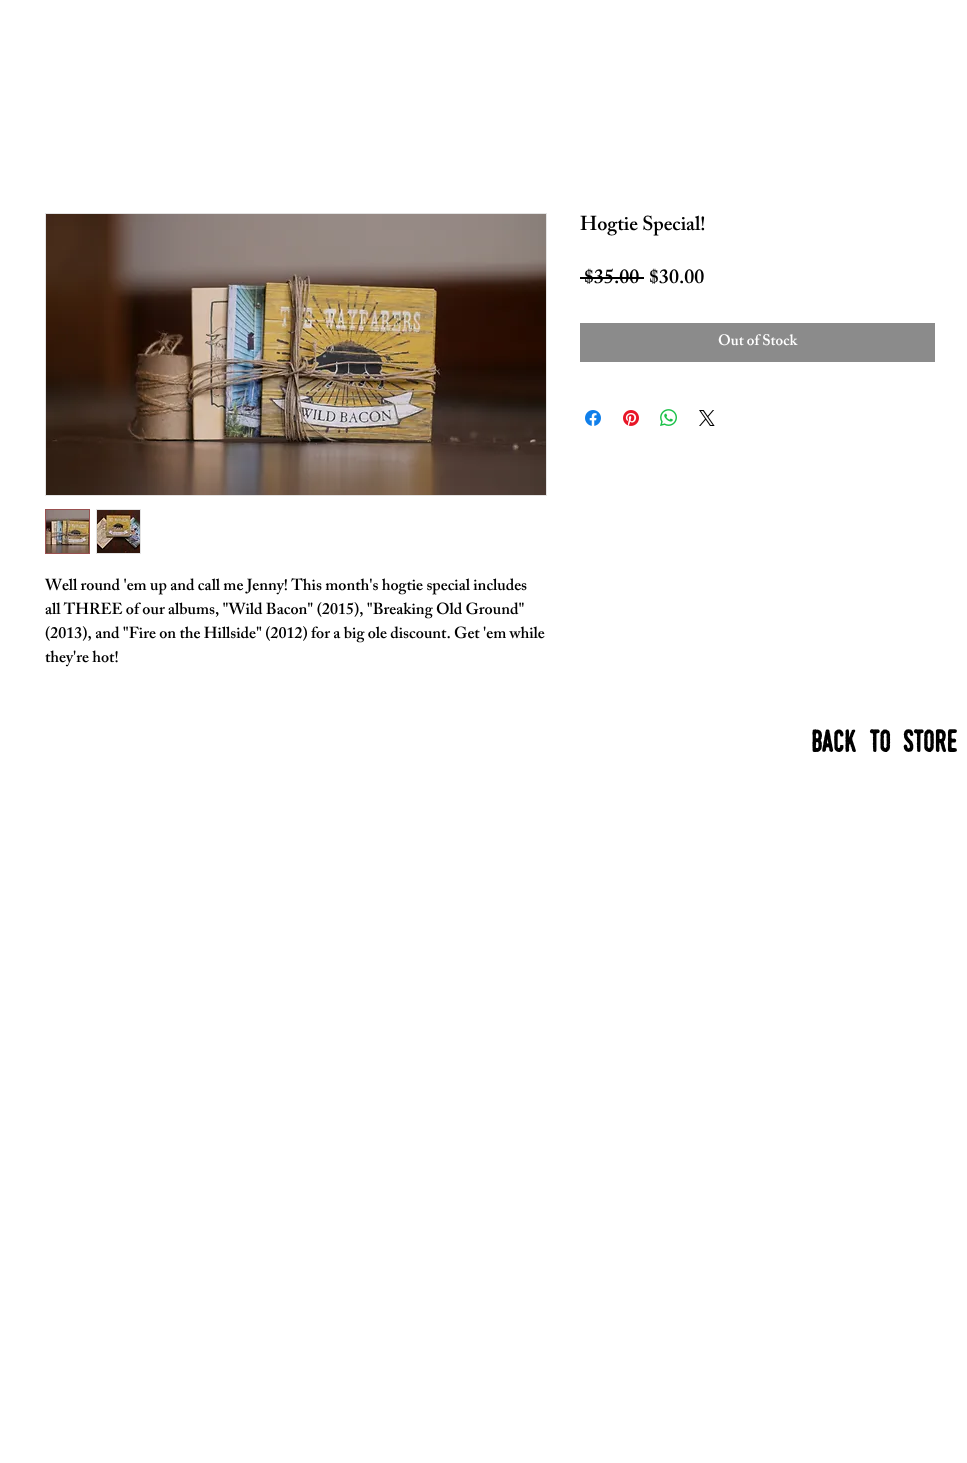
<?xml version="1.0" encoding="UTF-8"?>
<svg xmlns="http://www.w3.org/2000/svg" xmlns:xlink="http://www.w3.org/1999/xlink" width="967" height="1463">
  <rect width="100%" height="100%" fill="#ffffff" />
  <rect x="580" y="277" width="64" height="2" fill="#000000" />
  <rect x="580" y="323" width="355" height="39" fill="#8b8b8b" />
  <image x="585" y="410" width="16" height="16" xlink:href="image1.png" />
  <image x="623" y="410" width="16" height="16" xlink:href="image2.png" />
  <image x="660" y="409" width="17" height="17" xlink:href="image3.png" />
  <image x="699" y="410" width="16" height="16" xlink:href="image4.png" />
  <rect x="45.5" y="213.5" width="501" height="282" fill="none" stroke="#e4e4e4" />
  <image x="46" y="214" width="500" height="281" xlink:href="image5.png" />
  <rect x="45.5" y="509.5" width="44" height="44" fill="none" stroke="#995050" />
  <image x="46" y="510" width="43" height="43" xlink:href="image6.png" />
  <rect x="96" y="509" width="45" height="45" fill="#e4e4e4" />
  <image x="97" y="510" width="43" height="43" xlink:href="image7.png" />
  <text x="580" y="230" style="font-family: 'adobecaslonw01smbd'; font-size: 20px; font-weight: 600; fill: #000000">Hogtie Special!</text>
  <text x="584" y="283" style="font-family: 'adobecaslonw01smbd'; font-size: 20px; font-weight: 600; fill: #000000">$35.00</text>
  <text x="649" y="283" style="font-family: 'adobecaslonw01smbd'; font-size: 20px; font-weight: 600; fill: #000000">$30.00</text>
  <text x="718" y="345" style="font-family: 'adobecaslonw01smbd'; font-size: 15px; font-weight: 600; fill: #ffffff">Out of Stock</text>
  <text x="45" y="590" style="font-family: 'adobecaslonw01smbd'; font-size: 16px; font-weight: 600; fill: #000000">Well round 'em up and call me Jenny! This month's hogtie special includes</text>
  <text x="45" y="614" style="font-family: 'adobecaslonw01smbd'; font-size: 16px; font-weight: 600; fill: #000000">all THREE of our albums, "Wild Bacon" (2015), "Breaking Old Ground"</text>
  <text x="45" y="638" style="font-family: 'adobecaslonw01smbd'; font-size: 16px; font-weight: 600; fill: #000000">(2013), and "Fire on the Hillside" (2012) for a big ole discount. Get 'em while</text>
  <text x="45" y="662" style="font-family: 'adobecaslonw01smbd'; font-size: 16px; font-weight: 600; fill: #000000">they're hot!</text>
  <text x="811" y="752" style="font-family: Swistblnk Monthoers; font-size: 30px; font-weight: bold; fill: #000000">Back to Store</text>
</svg>
